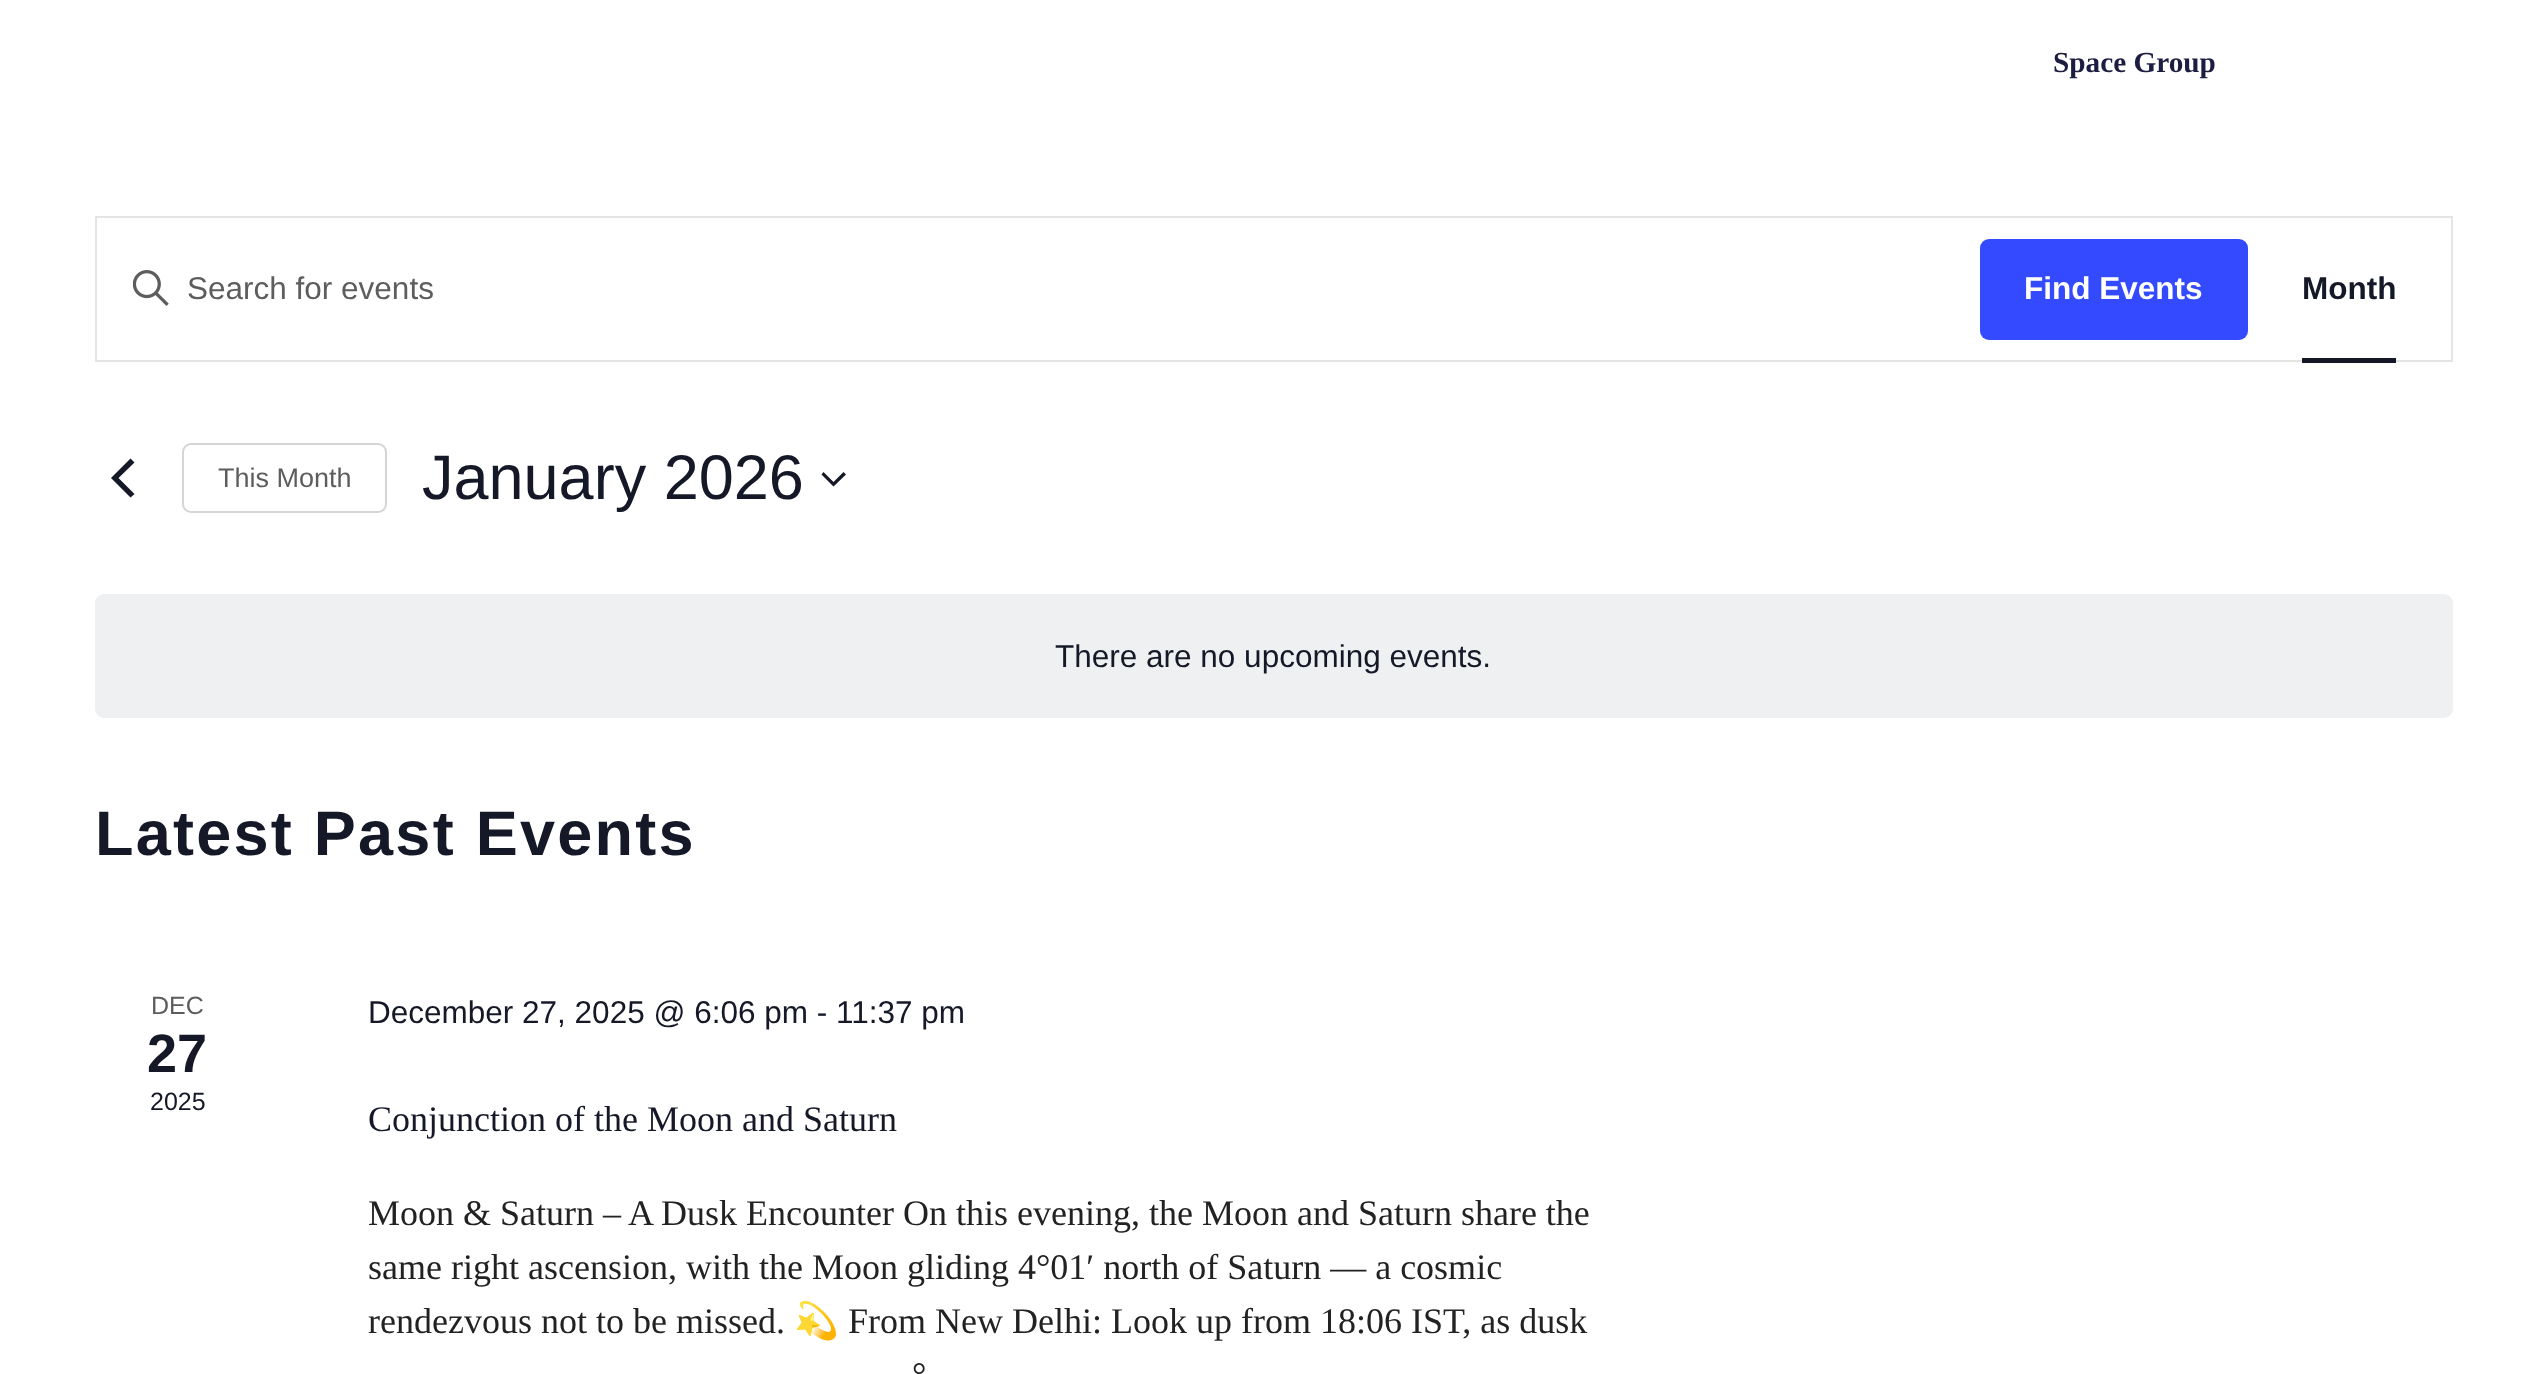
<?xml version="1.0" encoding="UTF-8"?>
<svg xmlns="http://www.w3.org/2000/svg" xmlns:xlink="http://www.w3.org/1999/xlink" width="2546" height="1374">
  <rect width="100%" height="100%" fill="#ffffff" />
  <rect x="96" y="217" width="2356" height="144" fill="none" stroke="#e4e4e4" stroke-width="2" />
  <image x="133" y="270" width="36" height="36" xlink:href="image1.png" />
  <rect x="1980" y="239" width="268" height="101" rx="9" fill="#334aff" />
  <rect x="2302" y="358" width="94" height="5" fill="#141827" />
  <path d="M 134.5 494 l -4 3.5 l -19.5 -19.5 l 19.5 -19.5 l 4 4 l -16 15.5 z" fill="#141827" />
  <rect x="183" y="444" width="203" height="68" rx="8" fill="none" stroke="#d5d5d5" stroke-width="2" />
  <path d="M 823.5 472 l 10 10 l 10 -10 l 2.5 2.5 l -12.5 12 l -12 -12 z" fill="#141827" fill-rule="evenodd" />
  <rect x="95" y="594" width="2358" height="124" rx="9" fill="#eff0f1" />
  <text x="2053" y="72" style="font-family: Liberation Serif; font-size: 29.25px; font-weight: bold; fill: #1c1d41">Space Group</text>
  <text x="187" y="299" style="font-family: Liberation Sans; font-size: 31.5px; fill: #5d5d5d">Search for events</text>
  <text x="2024" y="299" style="font-family: Liberation Sans; font-size: 31.5px; font-weight: bold; fill: #ffffff">Find Events</text>
  <text x="2302" y="299" style="font-family: Liberation Sans; font-size: 31.5px; font-weight: bold; fill: #141827">Month</text>
  <text x="218" y="487" style="font-family: Liberation Sans; font-size: 27px; fill: #5d5d5d">This Month</text>
  <text x="422" y="499" style="font-family: Liberation Sans; font-size: 63px; fill: #141827">January 2026</text>
  <text x="1055" y="667" style="font-family: Liberation Sans; font-size: 31.5px; fill: #141827">There are no upcoming events.</text>
  <text x="95" y="855" style="font-family: Liberation Sans; font-size: 63px; font-weight: bold; letter-spacing: 2.25px; fill: #141827">Latest Past Events</text>
  <text x="151" y="1014" style="font-family: Liberation Sans; font-size: 25px; fill: #5d5d5d">DEC</text>
  <text x="147" y="1072" style="font-family: Liberation Sans; font-size: 54px; font-weight: bold; fill: #141827">27</text>
  <text x="150" y="1110" style="font-family: Liberation Sans; font-size: 25px; fill: #141827">2025</text>
  <text x="368" y="1023" style="font-family: Liberation Sans; font-size: 31.5px; fill: #141827">December 27, 2025 @ 6:06 pm - 11:37 pm</text>
  <text x="368" y="1131" style="font-family: Liberation Serif; font-size: 36px; fill: #141827">Conjunction of the Moon and Saturn</text>
  <text x="368" y="1225" style="font-family: Liberation Serif; font-size: 36px; fill: #222222">Moon &amp; Saturn – A Dusk Encounter On this evening, the Moon and Saturn share the</text>
  <text x="368" y="1279" style="font-family: Liberation Serif; font-size: 36px; fill: #222222">same right ascension, with the Moon gliding 4°01′ north of Saturn — a cosmic</text>
  <text x="368" y="1333" style="font-family: Liberation Serif; font-size: 36px; fill: #222222">rendezvous not to be missed.</text>
  <text x="794" y="1333" style="font-family: Noto Color Emoji; font-size: 36px; fill: #222222">💫</text>
  <text x="848" y="1333" style="font-family: Liberation Serif; font-size: 36px; fill: #222222">From New Delhi: Look up from 18:06 IST, as dusk</text>
  <text x="912" y="1387" style="font-family: Liberation Serif; font-size: 36px; fill: #222222">°</text>
</svg>
